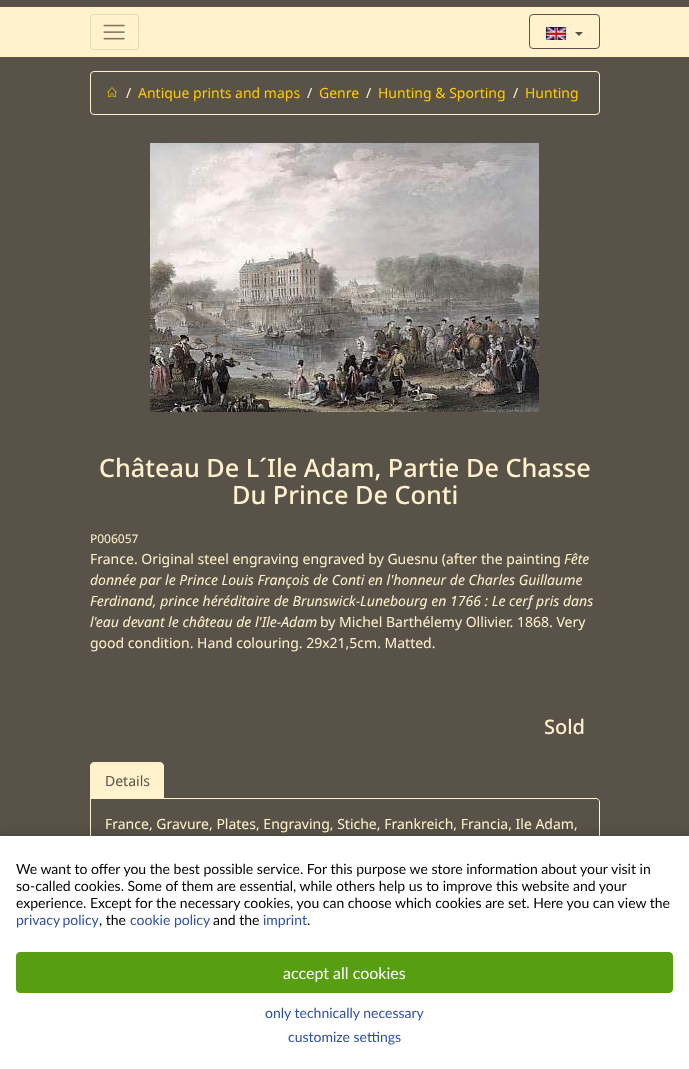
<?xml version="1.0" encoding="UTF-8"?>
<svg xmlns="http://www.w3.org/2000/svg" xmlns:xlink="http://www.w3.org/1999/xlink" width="689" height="1069">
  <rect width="100%" height="100%" fill="#595249" />
  <rect y="7" width="689" height="50" fill="#fff2cc" />
  <rect x="90.5" y="14.5" width="48" height="35" rx="3.5" fill="none" stroke="#e6dab8" />
  <image x="103" y="24" width="22" height="16" xlink:href="image1.png" />
  <rect x="529.5" y="14.5" width="70" height="34" rx="3.5" fill="none" stroke="#595249" />
  <image x="546" y="27" width="20" height="13" xlink:href="image2.png" />
  <path d="M 575 32 h 8 l -4 4 z" fill="#595249" />
  <rect x="90.5" y="71.5" width="509" height="43" rx="3.5" fill="none" stroke="#fff2cc" />
  <image x="107" y="87" width="10" height="10" xlink:href="image3.png" />
  <image x="150" y="143" width="389" height="269" xlink:href="image4.png" />
  <path d="M 90.5 798.5 h 505.5 c 2 0 3.5 1.5 3.5 3.5 v 64 c 0 2 -1.5 3.5 -3.5 3.5 h -502 c -2 0 -3.5 -1.5 -3.5 -3.5 z" fill="none" stroke="#fff2cc" />
  <path d="M 94 762.5 h 66 c 2 0 3.5 1.5 3.5 3.5 v 32.5 h -73 v -32.5 c 0 -2 1.5 -3.5 3.5 -3.5 z" fill="#fff2cc" stroke="#fff2cc" />
  <rect y="836" width="689" height="233" fill="#000000" fill-opacity="0.25" filter="blur(6px)" />
  <rect y="836" width="689" height="233" fill="#ffffff" />
  <rect x="16.5" y="952.5" width="656" height="40" rx="3.5" fill="#589e11" stroke="#589e11" />
  <text x="126" y="98" style="font-family: Noto Sans; font-size: 14px; fill: #fff2cc">/</text>
  <text x="138" y="98" style="font-family: Noto Sans; font-size: 14px; fill: #ffcc00">Antique prints and maps</text>
  <text x="307" y="98" style="font-family: Noto Sans; font-size: 14px; fill: #fff2cc">/</text>
  <text x="319" y="98" style="font-family: Noto Sans; font-size: 14px; fill: #ffcc00">Genre</text>
  <text x="366" y="98" style="font-family: Noto Sans; font-size: 14px; fill: #fff2cc">/</text>
  <text x="378" y="98" style="font-family: Noto Sans; font-size: 14px; fill: #ffcc00">Hunting &amp; Sporting</text>
  <text x="513" y="98" style="font-family: Noto Sans; font-size: 14px; fill: #fff2cc">/</text>
  <text x="525" y="98" style="font-family: Noto Sans; font-size: 14px; fill: #ffcc00">Hunting</text>
  <text x="99" y="477" style="font-family: Noto Sans; font-size: 25.25px; font-weight: 500; fill: #fff2cc">Château De L´Ile Adam, Partie De Chasse</text>
  <text x="232" y="504" style="font-family: Noto Sans; font-size: 25.25px; font-weight: 500; fill: #fff2cc">Du Prince De Conti</text>
  <text x="90" y="543" style="font-family: Noto Sans; font-size: 12px; fill: #fff2cc">P006057</text>
  <text x="90" y="564" style="font-family: Noto Sans; font-size: 14px; fill: #fff2cc">France. Original steel engraving engraved by Guesnu (after the painting</text>
  <text x="564" y="564" style="font-family: Noto Sans; font-size: 14px; font-style: italic; fill: #fff2cc">Fête</text>
  <text x="90" y="585" style="font-family: Noto Sans; font-size: 14px; font-style: italic; fill: #fff2cc">donnée par le Prince Louis François de Conti en l'honneur de Charles Guillaume</text>
  <text x="90" y="606" style="font-family: Noto Sans; font-size: 14px; font-style: italic; fill: #fff2cc">Ferdinand, prince héréditaire de Brunswick-Lunebourg en 1766 : Le cerf pris dans</text>
  <text x="90" y="627" style="font-family: Noto Sans; font-size: 14px; font-style: italic; fill: #fff2cc">l'eau devant le château de l'Ile-Adam</text>
  <text x="320" y="627" style="font-family: Noto Sans; font-size: 14px; fill: #fff2cc">by Michel Barthélemy Ollivier. 1868. Very</text>
  <text x="90" y="648" style="font-family: Noto Sans; font-size: 14px; fill: #fff2cc">good condition. Hand colouring. 29x21,5cm. Matted.</text>
  <text x="544" y="734" style="font-family: Noto Sans; font-size: 20px; font-weight: 500; fill: #fff2cc">Sold</text>
  <text x="105" y="786" style="font-family: Noto Sans; font-size: 14px; fill: #595249">Details</text>
  <text x="105" y="829" style="font-family: Noto Sans; font-size: 14px; fill: #fff2cc">France, Gravure, Plates, Engraving, Stiche, Frankreich, Francia, Ile Adam,</text>
  <text x="16" y="874" style="font-family: Lato; font-size: 14px; fill: #000000">We want to offer you the best possible service. For this purpose we store information about your visit in</text>
  <text x="16" y="891" style="font-family: Lato; font-size: 14px; fill: #000000">so-called cookies. Some of them are essential, while others help us to improve this website and your</text>
  <text x="16" y="908" style="font-family: Lato; font-size: 14px; fill: #000000">experience. Except for the necessary cookies, you can choose which cookies are set. Here you can view the</text>
  <text x="16" y="925" word-spacing="-1" style="font-family: Lato; font-size: 14px; fill: #2e4da7">privacy policy</text>
  <text x="99" y="925" style="font-family: Lato; font-size: 14px; fill: #000000">, the</text>
  <text x="130" y="925" style="font-family: Lato; font-size: 14px; fill: #2e4da7">cookie policy</text>
  <text x="213" y="925" style="font-family: Lato; font-size: 14px; fill: #000000">and the</text>
  <text x="263" y="925" style="font-family: Lato; font-size: 14px; fill: #2e4da7">imprint</text>
  <text x="307" y="925" style="font-family: Lato; font-size: 14px; fill: #000000">.</text>
  <text x="283" y="979" style="font-family: Lato; font-size: 16px; fill: #ffffff">accept all cookies</text>
  <text x="265" y="1018" style="font-family: Lato; font-size: 14px; fill: #2e4da7">only technically necessary</text>
  <text x="288" y="1042" style="font-family: Lato; font-size: 14px; fill: #2e4da7">customize settings</text>
</svg>
